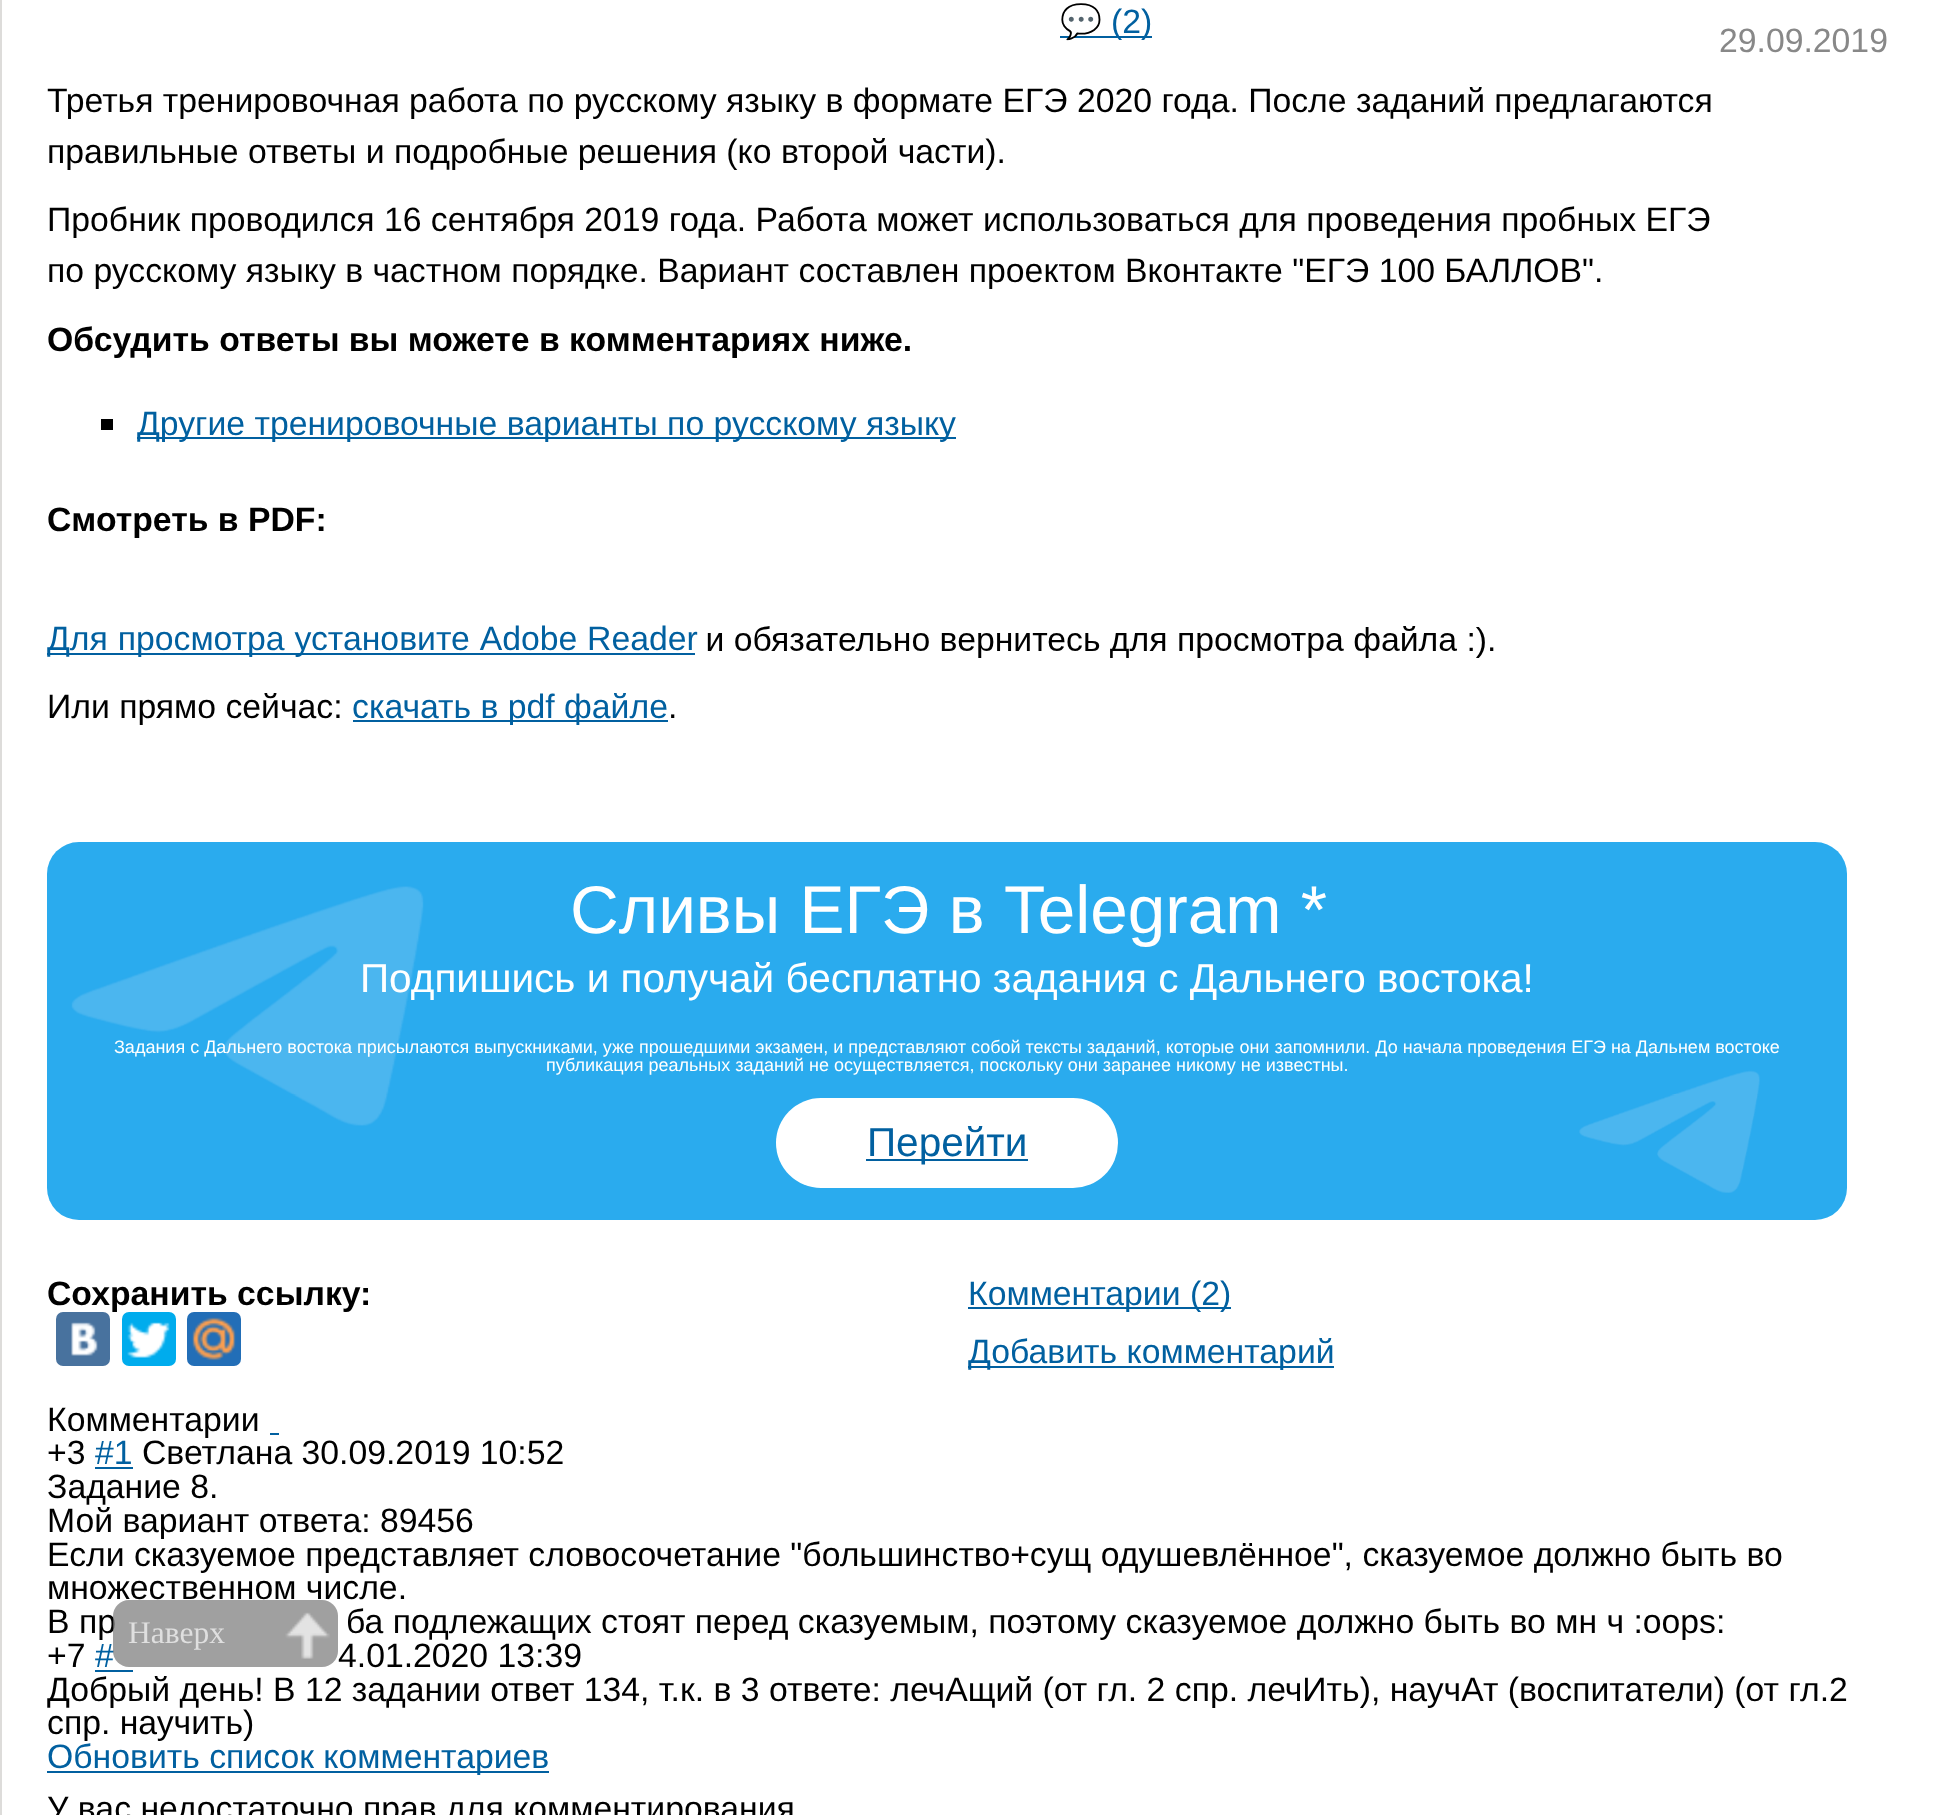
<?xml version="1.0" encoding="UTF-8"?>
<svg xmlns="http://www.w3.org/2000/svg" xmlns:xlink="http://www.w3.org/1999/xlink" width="1933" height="1815">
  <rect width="100%" height="100%" fill="#ffffff" />
  <rect x="1" y="-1" width="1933" height="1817" fill="none" stroke="#dddcda" stroke-width="2" />
  <rect x="1060" y="36" width="92" height="2" fill="#0160a0" />
  <rect x="101" y="419" width="12" height="11" fill="#000000" />
  <rect x="137" y="437" width="819" height="2" fill="#0160a0" />
  <rect x="47" y="653" width="648" height="2" fill="#0160a0" />
  <image x="707" y="626" width="787" height="32" xlink:href="image1.png" />
  <rect x="353" y="720" width="315" height="2" fill="#0160a0" />
  <rect x="47" y="842" width="1800" height="378" rx="32" fill="#2aabee" />
  <image x="71" y="886" width="1689" height="307" xlink:href="image2.png" />
  <rect x="776" y="1098" width="342" height="90" rx="45" fill="#ffffff" />
  <rect x="866" y="1159" width="162" height="2" fill="#0160a0" />
  <rect x="56" y="1312" width="54" height="54" rx="7" fill="#48729e" />
  <image x="71" y="1322" width="27" height="34" xlink:href="image3.png" />
  <rect x="122" y="1312" width="54" height="54" rx="7" fill="#00aced" />
  <image x="127" y="1322" width="43" height="36" xlink:href="image4.png" />
  <rect x="187" y="1312" width="54" height="54" rx="7" fill="#226eb7" />
  <image x="192" y="1317" width="44" height="44" xlink:href="image5.png" />
  <rect x="968" y="1307" width="263" height="2" fill="#0160a0" />
  <rect x="968" y="1366" width="366" height="2" fill="#0160a0" />
  <rect x="270" y="1433" width="9" height="2" fill="#0160a0" />
  <rect x="95" y="1467" width="38" height="2" fill="#0160a0" />
  <rect x="95" y="1670" width="38" height="2" fill="#0160a0" />
  <rect x="47" y="1771" width="502" height="2" fill="#0160a0" />
  <text x="1060" y="33" style="font-family: Noto Color Emoji; font-size: 33.75px; fill: #0160a0">💬</text>
  <text x="1111" y="33" style="font-family: Liberation Sans; font-size: 33.75px; fill: #0160a0">(2)</text>
  <text x="1719" y="52" style="font-family: Liberation Sans; font-size: 33.75px; fill: #888888">29.09.2019</text>
  <text x="47" y="112" style="font-family: Liberation Sans; font-size: 33.75px; fill: #000000">Третья тренировочная работа по русскому языку в формате ЕГЭ 2020 года. После заданий предлагаются</text>
  <text x="47" y="163" style="font-family: Liberation Sans; font-size: 33.75px; fill: #000000">правильные ответы и подробные решения (ко второй части).</text>
  <text x="47" y="231" style="font-family: Liberation Sans; font-size: 33.75px; fill: #000000">Пробник проводился 16 сентября 2019 года. Работа может использоваться для проведения пробных ЕГЭ</text>
  <text x="47" y="282" style="font-family: Liberation Sans; font-size: 33.75px; fill: #000000">по русскому языку в частном порядке. Вариант составлен проектом Вконтакте "ЕГЭ 100 БАЛЛОВ".</text>
  <text x="47" y="351" style="font-family: Liberation Sans; font-size: 33.75px; font-weight: bold; fill: #000000">Обсудить ответы вы можете в комментариях ниже.</text>
  <text x="137" y="435" style="font-family: Liberation Sans; font-size: 33.75px; fill: #0160a0">Другие тренировочные варианты по русскому языку</text>
  <text x="47" y="531" style="font-family: Liberation Sans; font-size: 33.75px; font-weight: bold; fill: #000000">Смотреть в PDF:</text>
  <text x="47" y="650" word-spacing="0.5" style="font-family: Liberation Sans; font-size: 33.75px; fill: #0160a0">Для просмотра установите Adobe Reader</text>
  <text x="47" y="718" style="font-family: Liberation Sans; font-size: 33.75px; fill: #000000">Или прямо сейчас:</text>
  <text x="352" y="718" style="font-family: Liberation Sans; font-size: 33.75px; fill: #0160a0">cкачать в pdf файле</text>
  <text x="668" y="718" style="font-family: Liberation Sans; font-size: 33.75px; fill: #000000">.</text>
  <text x="570" y="933" word-spacing="0.5" style="font-family: Liberation Sans; font-size: 67.5px; fill: #ffffff">Сливы ЕГЭ в Telegram *</text>
  <text x="360" y="992" style="font-family: Liberation Sans; font-size: 40.5px; fill: #ffffff">Подпишись и получай бесплатно задания с Дальнего востока!</text>
  <text x="114" y="1053" style="font-family: Liberation Sans; font-size: 18px; fill: #ffffff">Задания с Дальнего востока присылаются выпускниками, уже прошедшими экзамен, и представляют собой тексты заданий, которые они запомнили. До начала проведения ЕГЭ на Дальнем востоке</text>
  <text x="546" y="1071" style="font-family: Liberation Sans; font-size: 18px; fill: #ffffff">публикация реальных заданий не осуществляется, поскольку они заранее никому не известны.</text>
  <text x="867" y="1156" style="font-family: Liberation Sans; font-size: 40.5px; fill: #0160a0">Перейти</text>
  <text x="47" y="1305" style="font-family: Liberation Sans; font-size: 33.75px; font-weight: bold; fill: #000000">Сохранить ссылку:</text>
  <text x="968" y="1305" style="font-family: Liberation Sans; font-size: 33.75px; fill: #0160a0">Комментарии (2)</text>
  <text x="968" y="1363" style="font-family: Liberation Sans; font-size: 33.75px; fill: #0160a0">Добавить комментарий</text>
  <text x="47" y="1431" style="font-family: Liberation Sans; font-size: 33.75px; fill: #000000">Комментарии</text>
  <text x="47" y="1464" style="font-family: Liberation Sans; font-size: 33.75px; fill: #000000">+3</text>
  <text x="95" y="1464" style="font-family: Liberation Sans; font-size: 33.75px; fill: #0160a0">#1</text>
  <text x="142" y="1464" style="font-family: Liberation Sans; font-size: 33.75px; fill: #000000">Светлана 30.09.2019 10:52</text>
  <text x="47" y="1498" style="font-family: Liberation Sans; font-size: 33.75px; fill: #000000">Задание 8.</text>
  <text x="47" y="1532" style="font-family: Liberation Sans; font-size: 33.75px; fill: #000000">Мой вариант ответа: 89456</text>
  <text x="47" y="1566" style="font-family: Liberation Sans; font-size: 33.75px; fill: #000000">Если сказуемое представляет словосочетание "большинство+сущ одушевлённое", сказуемое должно быть во</text>
  <text x="47" y="1599" style="font-family: Liberation Sans; font-size: 33.75px; fill: #000000">множественном числе.</text>
  <text x="47" y="1633" style="font-family: Liberation Sans; font-size: 33.75px; fill: #000000">В пр</text>
  <text x="346" y="1633" style="font-family: Liberation Sans; font-size: 33.75px; fill: #000000">ба подлежащих стоят перед сказуемым, поэтому сказуемое должно быть во мн ч :oops:</text>
  <text x="47" y="1667" style="font-family: Liberation Sans; font-size: 33.75px; fill: #000000">+7</text>
  <text x="95" y="1667" style="font-family: Liberation Sans; font-size: 33.75px; fill: #0160a0">#</text>
  <text x="338" y="1667" style="font-family: Liberation Sans; font-size: 33.75px; fill: #000000">4.01.2020 13:39</text>
  <text x="47" y="1701" style="font-family: Liberation Sans; font-size: 33.75px; fill: #000000">Добрый день! В 12 задании ответ 134, т.к. в 3 ответе: лечАщий (от гл. 2 спр. лечИть), научАт (воспитатели) (от гл.2</text>
  <text x="47" y="1734" style="font-family: Liberation Sans; font-size: 33.75px; fill: #000000">спр. научить)</text>
  <text x="47" y="1768" style="font-family: Liberation Sans; font-size: 33.75px; fill: #0160a0">Обновить список комментариев</text>
  <text x="47" y="1820" style="font-family: Liberation Sans; font-size: 33.75px; fill: #000000">У вас недостаточно прав для комментирования</text>
  <rect x="113" y="1600" width="225" height="67" rx="16" fill="#777777" fill-opacity="0.7" />
  <image x="285" y="1612" width="45" height="47" xlink:href="image6.png" />
  <text x="128" y="1643" style="font-family: Liberation Serif; font-size: 31.5px; fill: #dfdfdf">Наверх</text>
</svg>
